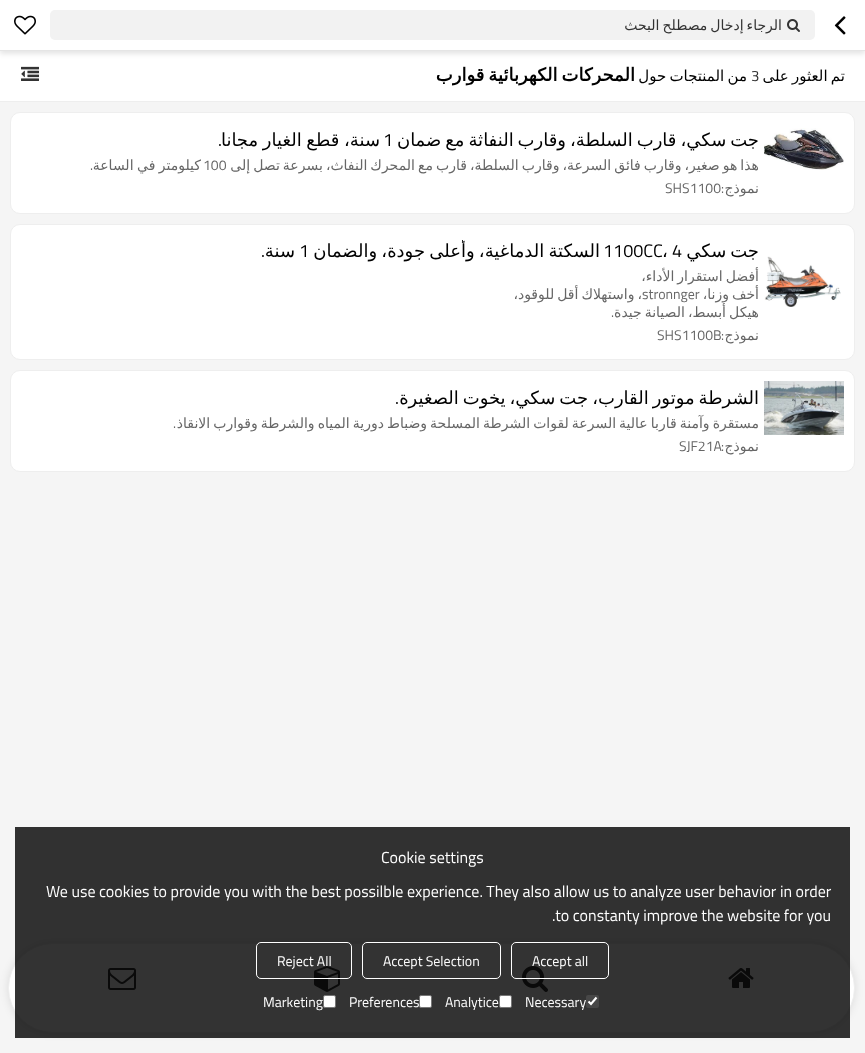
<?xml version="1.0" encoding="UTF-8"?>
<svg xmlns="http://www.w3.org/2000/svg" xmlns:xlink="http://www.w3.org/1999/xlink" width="865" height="1053">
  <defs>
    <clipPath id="clip1"><rect x="26" y="129" width="733" height="22" /></clipPath>
    <clipPath id="clip2"><rect x="26" y="156" width="733" height="18" /></clipPath>
    <clipPath id="clip3"><rect x="26" y="240" width="733" height="22" /></clipPath>
    <clipPath id="clip4"><rect x="26" y="267" width="733" height="18" /></clipPath>
    <clipPath id="clip5"><rect x="26" y="285" width="733" height="18" /></clipPath>
    <clipPath id="clip6"><rect x="26" y="303" width="733" height="18" /></clipPath>
    <clipPath id="clip7"><rect x="26" y="387" width="733" height="22" /></clipPath>
    <clipPath id="clip8"><rect x="26" y="414" width="733" height="18" /></clipPath>
  </defs>
  <rect width="100%" height="100%" fill="#f5f5f5" />
  <rect y="51" width="865" height="50" fill="#ffffff" />
  <rect y="3" width="865" height="51" fill="#000000" fill-opacity="0.1" filter="blur(2.5px)" />
  <rect width="865" height="50" fill="#ffffff" />
  <rect y="50" width="865" height="1" fill="#e5e5e5" />
  <image x="834" y="16" width="12" height="19" xlink:href="image1.png" />
  <rect x="50" y="10" width="765" height="30" rx="5" fill="#f2f2f2" />
  <image x="787" y="19" width="13" height="13" xlink:href="image2.png" />
  <image x="14" y="15" width="22" height="20" xlink:href="image3.png" />
  <rect y="101" width="865" height="1" fill="#eeeeee" />
  <image x="21" y="66" width="18" height="15" xlink:href="image4.png" />
  <rect x="10.5" y="112.5" width="844" height="101" rx="9.5" fill="#ffffff" stroke="#eeeeee" />
  <image x="764" y="128" width="80" height="42" xlink:href="image5.png" />
  <rect x="10.5" y="224.5" width="844" height="135" rx="9.5" fill="#ffffff" stroke="#eeeeee" />
  <image x="764" y="256" width="77" height="51" xlink:href="image6.png" />
  <rect x="10.5" y="370.5" width="844" height="101" rx="9.5" fill="#ffffff" stroke="#eeeeee" />
  <image x="764" y="381" width="80" height="54" xlink:href="image7.png" />
  <rect x="8" y="943" width="847" height="90" rx="45" fill="#000000" fill-opacity="0.1" filter="blur(4px)" />
  <rect x="8.5" y="943.5" width="846" height="89" rx="44.5" fill="#ffffff" stroke="#eeeeee" />
  <image x="728" y="968" width="26" height="20" xlink:href="image8.png" />
  <image x="522" y="966" width="26" height="26" xlink:href="image9.png" />
  <image x="314" y="966" width="26" height="26" xlink:href="image10.png" />
  <image x="108" y="968" width="28" height="22" xlink:href="image11.png" />
  <rect x="15" y="827" width="835" height="211" fill="#000000" fill-opacity="0.8" />
  <rect x="511.5" y="942.5" width="97" height="36" rx="4.5" fill="none" stroke="#ffffff" />
  <rect x="362.5" y="942.5" width="138" height="36" rx="4.5" fill="none" stroke="#ffffff" />
  <rect x="256.5" y="942.5" width="95" height="36" rx="4.5" fill="none" stroke="#ffffff" />
  <rect x="586" y="995" width="13" height="13" rx="2" fill="#474747" />
  <path d="M 588.5 1001.5 l 2.5 2.5 l 5.5 -6.5" fill="none" stroke="#ffffff" stroke-width="2.1" />
  <rect x="499.5" y="995.5" width="12" height="12" rx="1.5" fill="#ffffff" stroke="#767676" />
  <rect x="419.5" y="995.5" width="12" height="12" rx="1.5" fill="#ffffff" stroke="#767676" />
  <rect x="323.5" y="995.5" width="12" height="12" rx="1.5" fill="#ffffff" stroke="#767676" />
  <text x="782" y="30" word-spacing="-1.4" style="font-family: DejaVu Sans; font-size: 14px; direction: rtl; fill: #333333">الرجاء إدخال مصطلح البحث</text>
  <text x="845" y="81" word-spacing="-1.5" style="font-family: DejaVu Sans; font-size: 15px; direction: rtl; fill: #000000">تم العثور على</text>
  <text x="751" y="81" style="font-family: Titillium Web; font-size: 15px; fill: #333333">3</text>
  <text x="747" y="81" word-spacing="-1.5" style="font-family: DejaVu Sans; font-size: 15px; direction: rtl; fill: #000000">من المنتجات حول</text>
  <text x="635" y="81" word-spacing="-1.75" style="font-family: DejaVu Sans; font-size: 18px; font-weight: bold; direction: rtl; fill: #000000">المحركات الكهربائية قوارب</text>
  <g clip-path="url(#clip1)">
    <text x="759" y="146" word-spacing="-1.75" style="font-family: DejaVu Sans; font-size: 18px; direction: rtl; fill: #000000">جت سكي، قارب السلطة، وقارب النفاثة مع ضمان</text>
  </g>
  <text x="383" y="146" style="font-family: Titillium Web; font-size: 18px; fill: #000000">1</text>
  <text x="380" y="146" word-spacing="-1" style="font-family: DejaVu Sans; font-size: 18px; direction: rtl; fill: #000000">سنة، قطع الغيار مجانا</text>
  <text x="222" y="146" style="font-family: Titillium Web; font-size: 18px; direction: rtl; fill: #000000">.</text>
  <g clip-path="url(#clip2)">
    <text x="759" y="170" word-spacing="-1.4" style="font-family: DejaVu Sans; font-size: 14px; direction: rtl; fill: #666666">هذا هو صغير، وقارب فائق السرعة، وقارب السلطة، قارب مع المحرك النفاث، بسرعة تصل إلى</text>
  </g>
  <text x="203" y="170" style="font-family: Titillium Web; font-size: 14px; fill: #666666">100</text>
  <text x="201" y="170" word-spacing="-1" style="font-family: DejaVu Sans; font-size: 14px; direction: rtl; fill: #666666">كيلومتر في الساعة</text>
  <text x="93" y="170" style="font-family: Titillium Web; font-size: 14px; direction: rtl; fill: #666666">.</text>
  <text x="759" y="193" style="font-family: DejaVu Sans; font-size: 14px; direction: rtl; fill: #666666">نموذج</text>
  <text x="724" y="193" style="font-family: Titillium Web; font-size: 14px; direction: rtl; fill: #666666">:</text>
  <text x="665" y="193" style="font-family: Titillium Web; font-size: 14px; fill: #666666">SHS1100</text>
  <text x="759" y="257" word-spacing="-1.75" style="font-family: DejaVu Sans; font-size: 18px; direction: rtl; fill: #000000">جت سكي</text>
  <text x="672" y="257" style="font-family: Titillium Web; font-size: 18px; fill: #000000">4</text>
  <text x="662" y="257" style="font-family: DejaVu Sans; font-size: 18px; fill: #000000">،</text>
  <g clip-path="url(#clip3)">
    <text x="600" y="257" word-spacing="-1.5" style="font-family: DejaVu Sans; font-size: 18px; direction: rtl; fill: #000000">السكتة الدماغية، وأعلى جودة، والضمان</text>
  </g>
  <text x="603" y="257" style="font-family: Titillium Web; font-size: 18px; fill: #000000">1100CC</text>
  <text x="299" y="257" style="font-family: Titillium Web; font-size: 18px; fill: #000000">1</text>
  <text x="295" y="257" style="font-family: DejaVu Sans; font-size: 18px; direction: rtl; fill: #000000">سنة</text>
  <text x="265" y="257" style="font-family: Titillium Web; font-size: 18px; direction: rtl; fill: #000000">.</text>
  <g clip-path="url(#clip4)">
    <text x="759" y="281" word-spacing="-1.4" style="font-family: DejaVu Sans; font-size: 14px; direction: rtl; fill: #666666">أفضل استقرار الأداء،</text>
  </g>
  <g clip-path="url(#clip5)">
    <text x="759" y="299" word-spacing="-1.4" style="font-family: DejaVu Sans; font-size: 14px; direction: rtl; fill: #666666">أخف وزنا،</text>
  </g>
  <text x="642" y="299" word-spacing="-1.4" style="font-family: DejaVu Sans; font-size: 14px; direction: rtl; fill: #666666">، واستهلاك أقل للوقود،</text>
  <text x="642" y="299" style="font-family: Titillium Web; font-size: 14px; fill: #666666">stronnger</text>
  <g clip-path="url(#clip6)">
    <text x="759" y="317" word-spacing="-1.4" style="font-family: DejaVu Sans; font-size: 14px; direction: rtl; fill: #666666">هيكل أبسط، الصيانة جيدة</text>
  </g>
  <text x="614" y="317" style="font-family: Titillium Web; font-size: 14px; direction: rtl; fill: #666666">.</text>
  <text x="759" y="340" style="font-family: DejaVu Sans; font-size: 14px; direction: rtl; fill: #666666">نموذج</text>
  <text x="724" y="340" style="font-family: Titillium Web; font-size: 14px; direction: rtl; fill: #666666">:</text>
  <text x="657" y="340" style="font-family: Titillium Web; font-size: 14px; fill: #666666">SHS1100B</text>
  <g clip-path="url(#clip7)">
    <text x="759" y="404" word-spacing="-1.75" style="font-family: DejaVu Sans; font-size: 18px; direction: rtl; fill: #000000">الشرطة موتور القارب، جت سكي، يخوت الصغيرة</text>
  </g>
  <text x="399" y="404" style="font-family: Titillium Web; font-size: 18px; direction: rtl; fill: #000000">.</text>
  <g clip-path="url(#clip8)">
    <text x="759" y="428" word-spacing="-1.4" style="font-family: DejaVu Sans; font-size: 14px; direction: rtl; fill: #666666">مستقرة وآمنة قاربا عالية السرعة لقوات الشرطة المسلحة وضباط دورية المياه والشرطة وقوارب الانقاذ</text>
  </g>
  <text x="176" y="428" style="font-family: Titillium Web; font-size: 14px; direction: rtl; fill: #666666">.</text>
  <text x="759" y="451" style="font-family: DejaVu Sans; font-size: 14px; direction: rtl; fill: #666666">نموذج</text>
  <text x="724" y="451" style="font-family: Titillium Web; font-size: 14px; direction: rtl; fill: #666666">:</text>
  <text x="679" y="451" style="font-family: Titillium Web; font-size: 14px; fill: #666666">SJF21A</text>
  <text x="381" y="863" style="font-family: Titillium Web; font-size: 16px; fill: #ffffff">Cookie settings</text>
  <text x="46" y="897" style="font-family: Titillium Web; font-size: 16px; fill: #ffffff">We use cookies to provide you with the best possilble experience. They also allow us to analyze user behavior in order</text>
  <text x="552" y="921" style="font-family: Titillium Web; font-size: 16px; fill: #ffffff">.to constanty improve the website for you</text>
  <text x="532" y="966" style="font-family: Titillium Web; font-size: 14px; fill: #ffffff">Accept all</text>
  <text x="383" y="966" style="font-family: Titillium Web; font-size: 14px; fill: #ffffff">Accept Selection</text>
  <text x="277" y="966" style="font-family: Titillium Web; font-size: 14px; fill: #ffffff">Reject All</text>
  <text x="525" y="1007" style="font-family: Titillium Web; font-size: 14px; fill: #ffffff">Necessary</text>
  <text x="445" y="1007" style="font-family: Titillium Web; font-size: 14px; fill: #ffffff">Analytice</text>
  <text x="349" y="1007" style="font-family: Titillium Web; font-size: 14px; fill: #ffffff">Preferences</text>
  <text x="263" y="1007" style="font-family: Titillium Web; font-size: 14px; fill: #ffffff">Marketing</text>
</svg>
